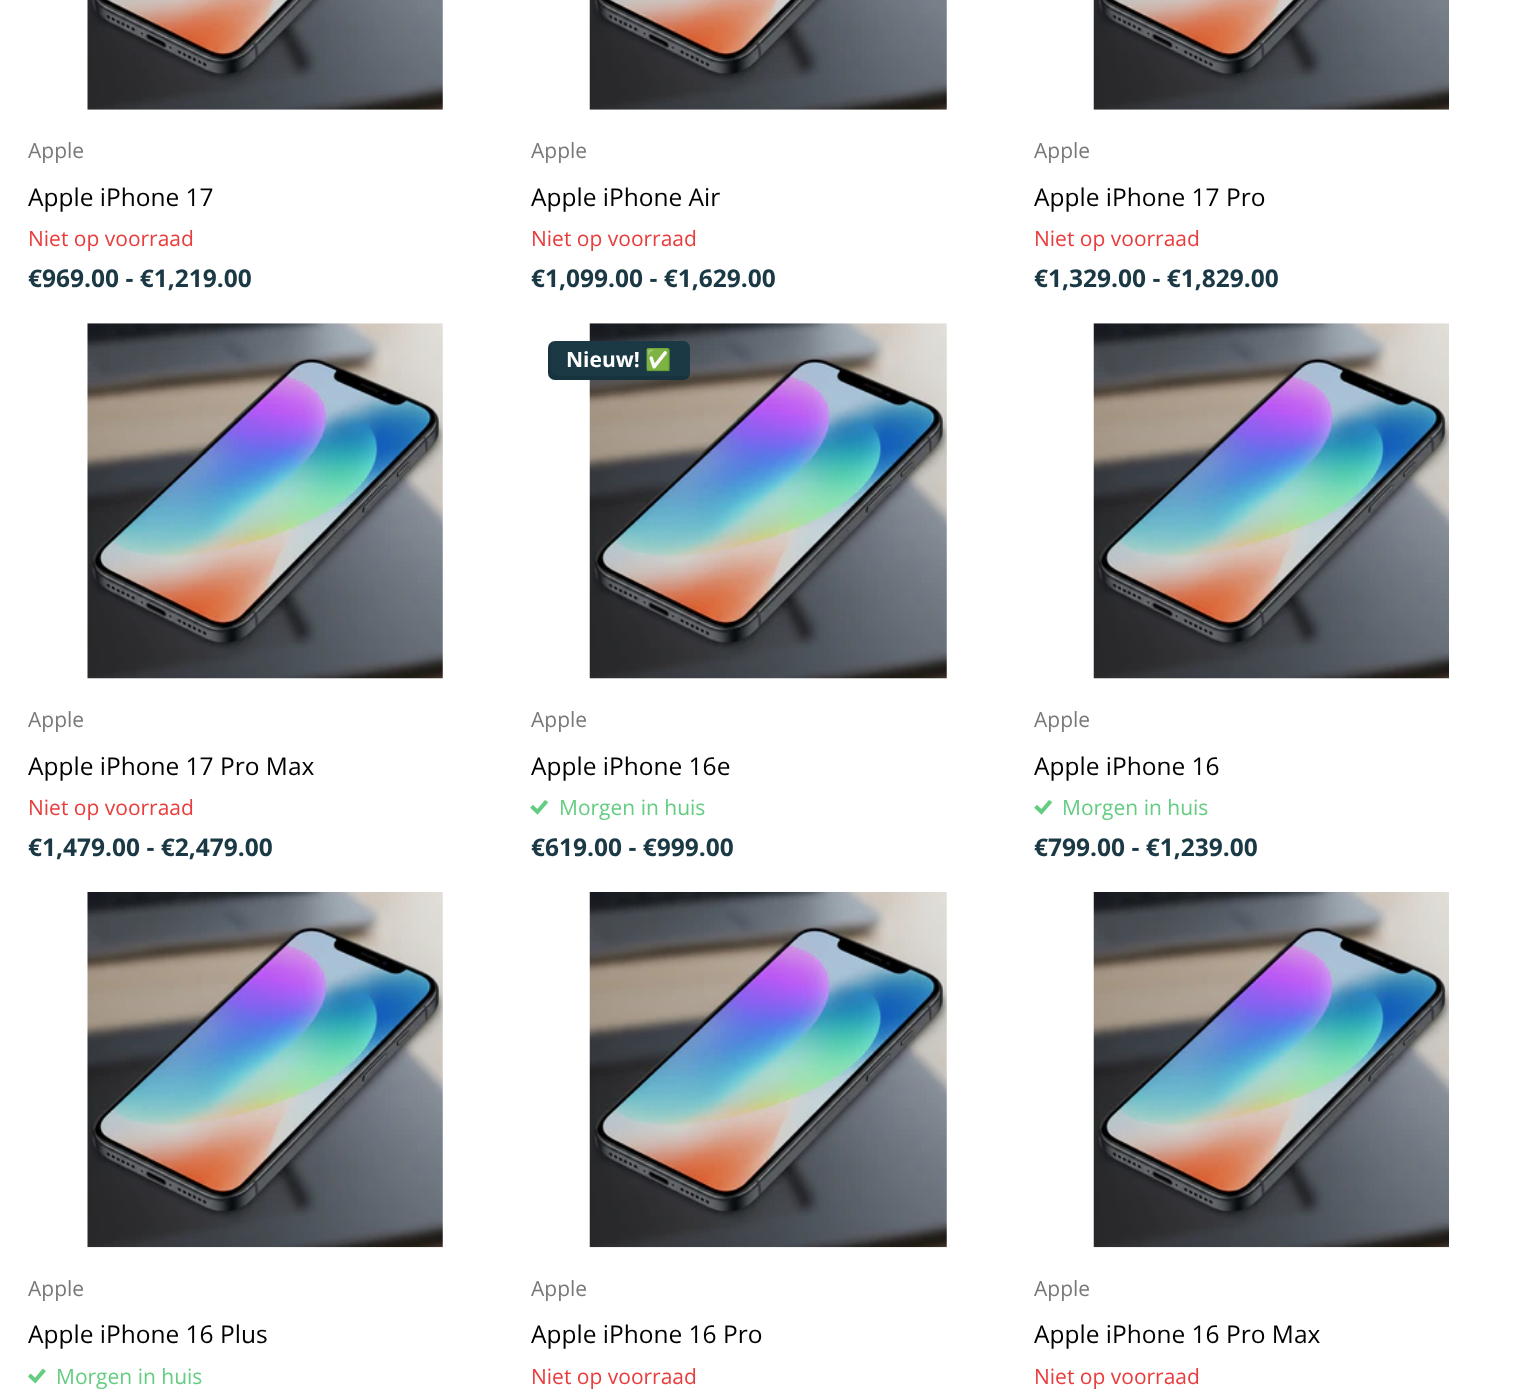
<?xml version="1.0" encoding="UTF-8"?>
<svg xmlns="http://www.w3.org/2000/svg" xmlns:xlink="http://www.w3.org/1999/xlink" width="1535" height="1398">
  <style>*{font-kerning:none!important;font-variant-ligatures:none!important}</style>
  <rect width="100%" height="100%" fill="#ffffff" />
  <image x="87" y="0" width="356" height="110" xlink:href="image1.png" />
  <image x="589" y="0" width="358" height="110" xlink:href="image2.png" />
  <image x="1093" y="0" width="356" height="110" xlink:href="image3.png" />
  <image x="87" y="323" width="356" height="356" xlink:href="image4.png" />
  <image x="589" y="323" width="358" height="356" xlink:href="image5.png" />
  <rect x="548" y="341" width="142" height="39" rx="7" fill="#1a3945" />
  <path d="M 552 342 c -2 1 -4 3 -4 6 v 25 c 0 4 3 7 7 7 h 128 c 3 0 6 -2 7 -5 c -1 1 -3 1 -4 1 h -128 c -4 0 -7 -3 -7 -7 v -24 z" fill="#000000" fill-opacity="0.1" />
  <image x="530" y="800" width="18" height="15" xlink:href="image6.png" />
  <image x="1093" y="323" width="356" height="356" xlink:href="image7.png" />
  <image x="1034" y="800" width="18" height="15" xlink:href="image6.png" />
  <image x="87" y="892" width="356" height="356" xlink:href="image8.png" />
  <image x="28" y="1368" width="18" height="16" xlink:href="image9.png" />
  <image x="589" y="892" width="358" height="356" xlink:href="image10.png" />
  <image x="1093" y="892" width="356" height="356" xlink:href="image11.png" />
  <text x="28" y="158" style="font-family: Open Sans; font-size: 21px; fill: #787878">Apple</text>
  <text x="28" y="206" style="font-family: Open Sans; font-size: 24.5px; fill: #000000">Apple iPhone 17</text>
  <text x="28" y="246" style="font-family: Open Sans; font-size: 21px; fill: #e93d3d">Niet op voorraad</text>
  <text x="28" y="287" style="font-family: Open Sans; font-size: 24.5px; font-weight: bold; fill: #1a3945">€969.00 - €1,219.00</text>
  <text x="531" y="158" style="font-family: Open Sans; font-size: 21px; fill: #787878">Apple</text>
  <text x="531" y="206" style="font-family: Open Sans; font-size: 24.5px; fill: #000000">Apple iPhone Air</text>
  <text x="531" y="246" style="font-family: Open Sans; font-size: 21px; fill: #e93d3d">Niet op voorraad</text>
  <text x="531" y="287" style="font-family: Open Sans; font-size: 24.5px; font-weight: bold; fill: #1a3945">€1,099.00 - €1,629.00</text>
  <text x="1034" y="158" style="font-family: Open Sans; font-size: 21px; fill: #787878">Apple</text>
  <text x="1034" y="206" style="font-family: Open Sans; font-size: 24.5px; fill: #000000">Apple iPhone 17 Pro</text>
  <text x="1034" y="246" style="font-family: Open Sans; font-size: 21px; fill: #e93d3d">Niet op voorraad</text>
  <text x="1034" y="287" style="font-family: Open Sans; font-size: 24.5px; font-weight: bold; fill: #1a3945">€1,329.00 - €1,829.00</text>
  <text x="28" y="727" style="font-family: Open Sans; font-size: 21px; fill: #787878">Apple</text>
  <text x="28" y="775" style="font-family: Open Sans; font-size: 24.5px; fill: #000000">Apple iPhone 17 Pro Max</text>
  <text x="28" y="815" style="font-family: Open Sans; font-size: 21px; fill: #e93d3d">Niet op voorraad</text>
  <text x="28" y="856" style="font-family: Open Sans; font-size: 24.5px; font-weight: bold; fill: #1a3945">€1,479.00 - €2,479.00</text>
  <text x="566" y="367" style="font-family: Open Sans; font-size: 21px; font-weight: bold; fill: #ffffff">Nieuw!</text>
  <text x="645" y="367" style="font-family: Noto Color Emoji; font-size: 21px; font-weight: bold; fill: #ffffff">✅</text>
  <text x="531" y="727" style="font-family: Open Sans; font-size: 21px; fill: #787878">Apple</text>
  <text x="531" y="775" style="font-family: Open Sans; font-size: 24.5px; fill: #000000">Apple iPhone 16e</text>
  <text x="559" y="815" style="font-family: Open Sans; font-size: 21px; fill: #64cd82">Morgen in huis</text>
  <text x="531" y="856" style="font-family: Open Sans; font-size: 24.5px; font-weight: bold; fill: #1a3945">€619.00 - €999.00</text>
  <text x="1034" y="727" style="font-family: Open Sans; font-size: 21px; fill: #787878">Apple</text>
  <text x="1034" y="775" style="font-family: Open Sans; font-size: 24.5px; fill: #000000">Apple iPhone 16</text>
  <text x="1062" y="815" style="font-family: Open Sans; font-size: 21px; fill: #64cd82">Morgen in huis</text>
  <text x="1034" y="856" style="font-family: Open Sans; font-size: 24.5px; font-weight: bold; fill: #1a3945">€799.00 - €1,239.00</text>
  <text x="28" y="1296" style="font-family: Open Sans; font-size: 21px; fill: #787878">Apple</text>
  <text x="28" y="1343" style="font-family: Open Sans; font-size: 24.5px; fill: #000000">Apple iPhone 16 Plus</text>
  <text x="56" y="1384" style="font-family: Open Sans; font-size: 21px; fill: #64cd82">Morgen in huis</text>
  <text x="531" y="1296" style="font-family: Open Sans; font-size: 21px; fill: #787878">Apple</text>
  <text x="531" y="1343" style="font-family: Open Sans; font-size: 24.5px; fill: #000000">Apple iPhone 16 Pro</text>
  <text x="531" y="1384" style="font-family: Open Sans; font-size: 21px; fill: #e93d3d">Niet op voorraad</text>
  <text x="1034" y="1296" style="font-family: Open Sans; font-size: 21px; fill: #787878">Apple</text>
  <text x="1034" y="1343" style="font-family: Open Sans; font-size: 24.5px; fill: #000000">Apple iPhone 16 Pro Max</text>
  <text x="1034" y="1384" style="font-family: Open Sans; font-size: 21px; fill: #e93d3d">Niet op voorraad</text>
</svg>
